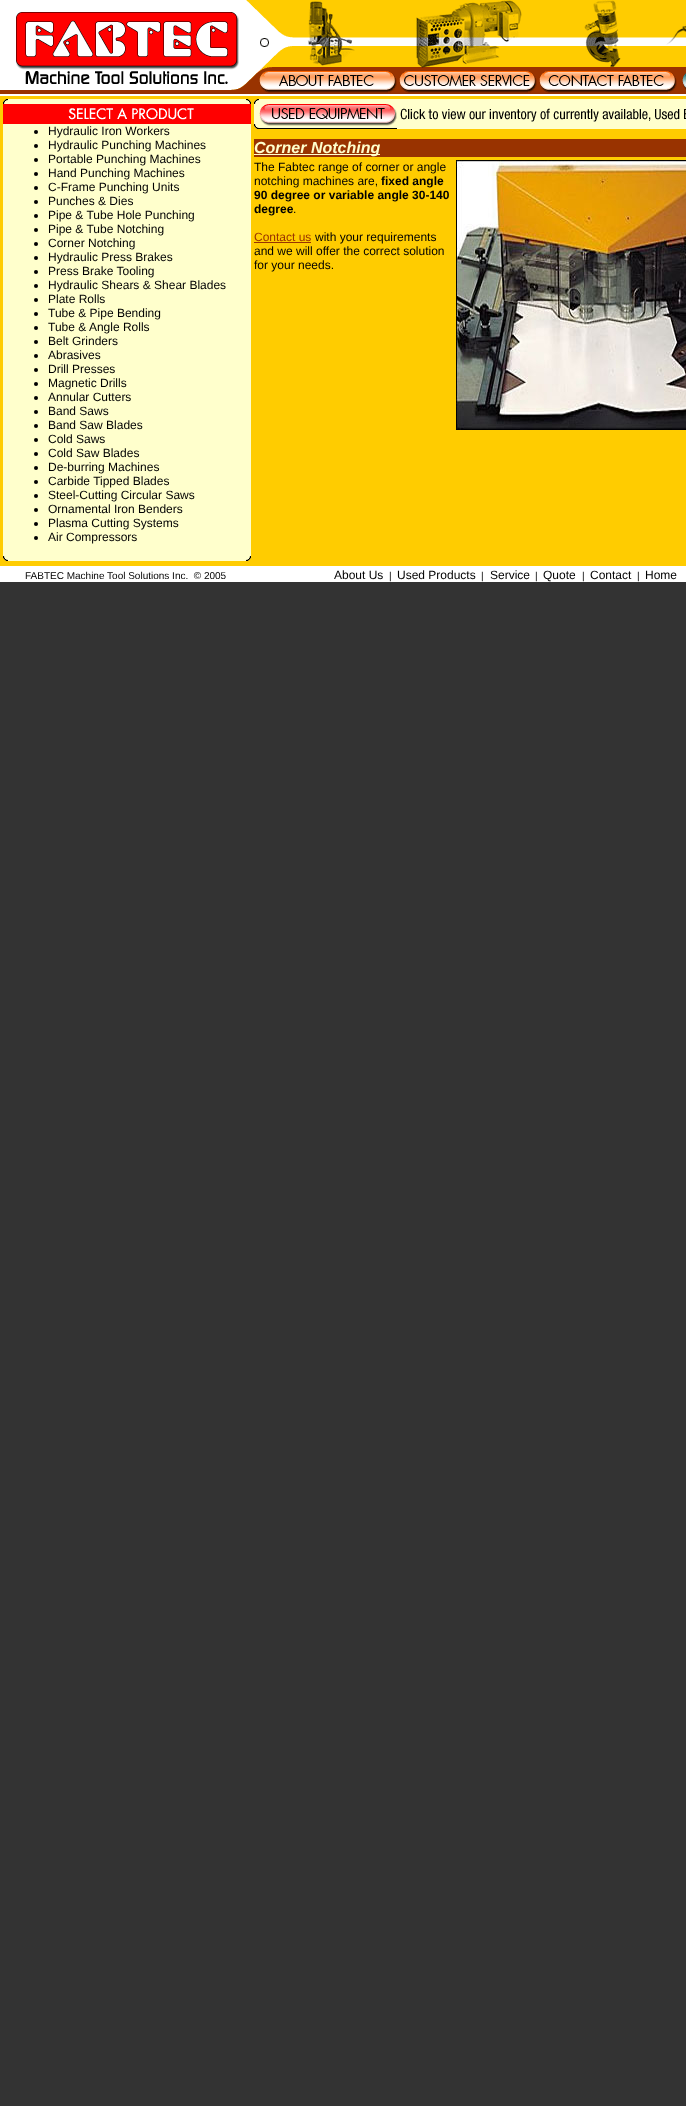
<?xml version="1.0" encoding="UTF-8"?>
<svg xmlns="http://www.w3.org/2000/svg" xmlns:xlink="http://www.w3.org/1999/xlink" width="686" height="2106">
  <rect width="100%" height="100%" fill="#333333" />
  <rect width="686" height="582" fill="#ffffff" />
  <image x="16" y="0" width="235" height="67" xlink:href="image1.png" />
  <image x="251" y="0" width="435" height="67" xlink:href="image2.png" />
  <image x="0" y="67" width="251" height="27" xlink:href="image3.png" />
  <image x="251" y="67" width="146" height="27" xlink:href="image4.png" />
  <image x="397" y="67" width="140" height="27" xlink:href="image5.png" />
  <image x="537" y="67" width="142" height="27" xlink:href="image6.png" />
  <image x="679" y="67" width="7" height="27" xlink:href="image7.png" />
  <rect y="96" width="686" height="3" fill="#ffcc00" />
  <rect y="99" width="686" height="467" fill="#ffcc00" />
  <image x="3" y="99" width="5" height="5" xlink:href="image8.png" />
  <rect x="8" y="99" width="238" height="5" fill="#ffffcc" />
  <image x="246" y="99" width="5" height="5" xlink:href="image9.png" />
  <rect x="3" y="104" width="248" height="20" fill="#ff0000" />
  <image x="68" y="108" width="126" height="12" xlink:href="image10.png" />
  <rect x="3" y="124" width="248" height="432" fill="#ffffcc" />
  <circle cx="36" cy="132" r="2" fill="#000000" />
  <circle cx="36" cy="146" r="2" fill="#000000" />
  <circle cx="36" cy="160" r="2" fill="#000000" />
  <circle cx="36" cy="174" r="2" fill="#000000" />
  <circle cx="36" cy="188" r="2" fill="#000000" />
  <circle cx="36" cy="202" r="2" fill="#000000" />
  <circle cx="36" cy="216" r="2" fill="#000000" />
  <circle cx="36" cy="230" r="2" fill="#000000" />
  <circle cx="36" cy="244" r="2" fill="#000000" />
  <circle cx="36" cy="258" r="2" fill="#000000" />
  <circle cx="36" cy="272" r="2" fill="#000000" />
  <circle cx="36" cy="286" r="2" fill="#000000" />
  <circle cx="36" cy="300" r="2" fill="#000000" />
  <circle cx="36" cy="314" r="2" fill="#000000" />
  <circle cx="36" cy="328" r="2" fill="#000000" />
  <circle cx="36" cy="342" r="2" fill="#000000" />
  <circle cx="36" cy="356" r="2" fill="#000000" />
  <circle cx="36" cy="370" r="2" fill="#000000" />
  <circle cx="36" cy="384" r="2" fill="#000000" />
  <circle cx="36" cy="398" r="2" fill="#000000" />
  <circle cx="36" cy="412" r="2" fill="#000000" />
  <circle cx="36" cy="426" r="2" fill="#000000" />
  <circle cx="36" cy="440" r="2" fill="#000000" />
  <circle cx="36" cy="454" r="2" fill="#000000" />
  <circle cx="36" cy="468" r="2" fill="#000000" />
  <circle cx="36" cy="482" r="2" fill="#000000" />
  <circle cx="36" cy="496" r="2" fill="#000000" />
  <circle cx="36" cy="510" r="2" fill="#000000" />
  <circle cx="36" cy="524" r="2" fill="#000000" />
  <circle cx="36" cy="538" r="2" fill="#000000" />
  <image x="3" y="556" width="5" height="5" xlink:href="image11.png" />
  <rect x="8" y="556" width="238" height="5" fill="#ffffcc" />
  <image x="246" y="556" width="5" height="5" xlink:href="image12.png" />
  <image x="254" y="99" width="5" height="5" xlink:href="image8.png" />
  <rect x="259" y="99" width="427" height="5" fill="#ffffcc" />
  <rect x="254" y="104" width="5" height="20" fill="#ffffcc" />
  <image x="259" y="104" width="138" height="20" xlink:href="image13.png" />
  <image x="397" y="104" width="289" height="20" xlink:href="image14.png" />
  <image x="254" y="124" width="5" height="5" xlink:href="image11.png" />
  <image x="259" y="124" width="138" height="5" xlink:href="image15.png" />
  <rect x="397" y="124" width="289" height="5" fill="#ffffcc" />
  <rect x="254" y="139" width="432" height="18" fill="#993300" />
  <rect x="254" y="154" width="126" height="1" fill="#ffffcc" />
  <rect x="254" y="242" width="57" height="1" fill="#993300" />
  <image x="456" y="160" width="230" height="270" xlink:href="image16.png" />
  <text x="48" y="135" style="font-family: Liberation Sans; font-size: 12px; fill: #000000">Hydraulic Iron Workers</text>
  <text x="48" y="149" style="font-family: Liberation Sans; font-size: 12px; fill: #000000">Hydraulic Punching Machines</text>
  <text x="48" y="163" style="font-family: Liberation Sans; font-size: 12px; fill: #000000">Portable Punching Machines</text>
  <text x="48" y="177" style="font-family: Liberation Sans; font-size: 12px; fill: #000000">Hand Punching Machines</text>
  <text x="48" y="191" style="font-family: Liberation Sans; font-size: 12px; fill: #000000">C-Frame Punching Units</text>
  <text x="48" y="205" style="font-family: Liberation Sans; font-size: 12px; fill: #000000">Punches &amp; Dies</text>
  <text x="48" y="219" style="font-family: Liberation Sans; font-size: 12px; fill: #000000">Pipe &amp; Tube Hole Punching</text>
  <text x="48" y="233" style="font-family: Liberation Sans; font-size: 12px; fill: #000000">Pipe &amp; Tube Notching</text>
  <text x="48" y="247" style="font-family: Liberation Sans; font-size: 12px; fill: #000000">Corner Notching</text>
  <text x="48" y="261" style="font-family: Liberation Sans; font-size: 12px; fill: #000000">Hydraulic Press Brakes</text>
  <text x="48" y="275" style="font-family: Liberation Sans; font-size: 12px; fill: #000000">Press Brake Tooling</text>
  <text x="48" y="289" style="font-family: Liberation Sans; font-size: 12px; fill: #000000">Hydraulic Shears &amp; Shear Blades</text>
  <text x="48" y="303" style="font-family: Liberation Sans; font-size: 12px; fill: #000000">Plate Rolls</text>
  <text x="48" y="317" style="font-family: Liberation Sans; font-size: 12px; fill: #000000">Tube &amp; Pipe Bending</text>
  <text x="48" y="331" style="font-family: Liberation Sans; font-size: 12px; fill: #000000">Tube &amp; Angle Rolls</text>
  <text x="48" y="345" style="font-family: Liberation Sans; font-size: 12px; fill: #000000">Belt Grinders</text>
  <text x="48" y="359" style="font-family: Liberation Sans; font-size: 12px; fill: #000000">Abrasives</text>
  <text x="48" y="373" style="font-family: Liberation Sans; font-size: 12px; fill: #000000">Drill Presses</text>
  <text x="48" y="387" style="font-family: Liberation Sans; font-size: 12px; fill: #000000">Magnetic Drills</text>
  <text x="48" y="401" style="font-family: Liberation Sans; font-size: 12px; fill: #000000">Annular Cutters</text>
  <text x="48" y="415" style="font-family: Liberation Sans; font-size: 12px; fill: #000000">Band Saws</text>
  <text x="48" y="429" style="font-family: Liberation Sans; font-size: 12px; fill: #000000">Band Saw Blades</text>
  <text x="48" y="443" style="font-family: Liberation Sans; font-size: 12px; fill: #000000">Cold Saws</text>
  <text x="48" y="457" style="font-family: Liberation Sans; font-size: 12px; fill: #000000">Cold Saw Blades</text>
  <text x="48" y="471" style="font-family: Liberation Sans; font-size: 12px; fill: #000000">De-burring Machines</text>
  <text x="48" y="485" style="font-family: Liberation Sans; font-size: 12px; fill: #000000">Carbide Tipped Blades</text>
  <text x="48" y="499" style="font-family: Liberation Sans; font-size: 12px; fill: #000000">Steel-Cutting Circular Saws</text>
  <text x="48" y="513" style="font-family: Liberation Sans; font-size: 12px; fill: #000000">Ornamental Iron Benders</text>
  <text x="48" y="527" style="font-family: Liberation Sans; font-size: 12px; fill: #000000">Plasma Cutting Systems</text>
  <text x="48" y="541" style="font-family: Liberation Sans; font-size: 12px; fill: #000000">Air Compressors</text>
  <text x="254" y="153" style="font-family: Liberation Sans; font-size: 16px; font-weight: bold; font-style: italic; fill: #ffffcc">Corner Notching</text>
  <text x="254" y="171" style="font-family: Liberation Sans; font-size: 12px; fill: #000000">The Fabtec range of corner or angle</text>
  <text x="254" y="185" style="font-family: Liberation Sans; font-size: 12px; fill: #000000">notching machines are,</text>
  <text x="381" y="185" style="font-family: Liberation Sans; font-size: 12px; font-weight: bold; fill: #000000">fixed angle</text>
  <text x="254" y="199" style="font-family: Liberation Sans; font-size: 12px; font-weight: bold; fill: #000000">90 degree or variable angle 30-140</text>
  <text x="254" y="213" style="font-family: Liberation Sans; font-size: 12px; font-weight: bold; fill: #000000">degree</text>
  <text x="293" y="213" style="font-family: Liberation Sans; font-size: 12px; fill: #000000">.</text>
  <text x="254" y="241" style="font-family: Liberation Sans; font-size: 12px; fill: #993300">Contact us</text>
  <text x="315" y="241" style="font-family: Liberation Sans; font-size: 12px; fill: #000000">with your requirements</text>
  <text x="254" y="255" style="font-family: Liberation Sans; font-size: 12px; fill: #000000">and we will offer the correct solution</text>
  <text x="254" y="269" style="font-family: Liberation Sans; font-size: 12px; fill: #000000">for your needs.</text>
  <text x="25" y="579" style="font-family: Liberation Sans; font-size: 10px; fill: #000000" xml:space="preserve">FABTEC Machine Tool Solutions Inc.  © 2005</text>
  <text x="334" y="579" style="font-family: Liberation Sans; font-size: 12px; fill: #000000">About Us</text>
  <text x="389" y="579" style="font-family: Liberation Sans; font-size: 10px; fill: #000000">|</text>
  <text x="397" y="579" style="font-family: Liberation Sans; font-size: 12px; fill: #000000">Used Products</text>
  <text x="481" y="579" style="font-family: Liberation Sans; font-size: 10px; fill: #000000">|</text>
  <text x="490" y="579" style="font-family: Liberation Sans; font-size: 12px; fill: #000000">Service</text>
  <text x="535" y="579" style="font-family: Liberation Sans; font-size: 10px; fill: #000000">|</text>
  <text x="543" y="579" style="font-family: Liberation Sans; font-size: 12px; fill: #000000">Quote</text>
  <text x="582" y="579" style="font-family: Liberation Sans; font-size: 10px; fill: #000000">|</text>
  <text x="590" y="579" style="font-family: Liberation Sans; font-size: 12px; fill: #000000">Contact</text>
  <text x="637" y="579" style="font-family: Liberation Sans; font-size: 10px; fill: #000000">|</text>
  <text x="645" y="579" style="font-family: Liberation Sans; font-size: 12px; fill: #000000">Home</text>
</svg>
